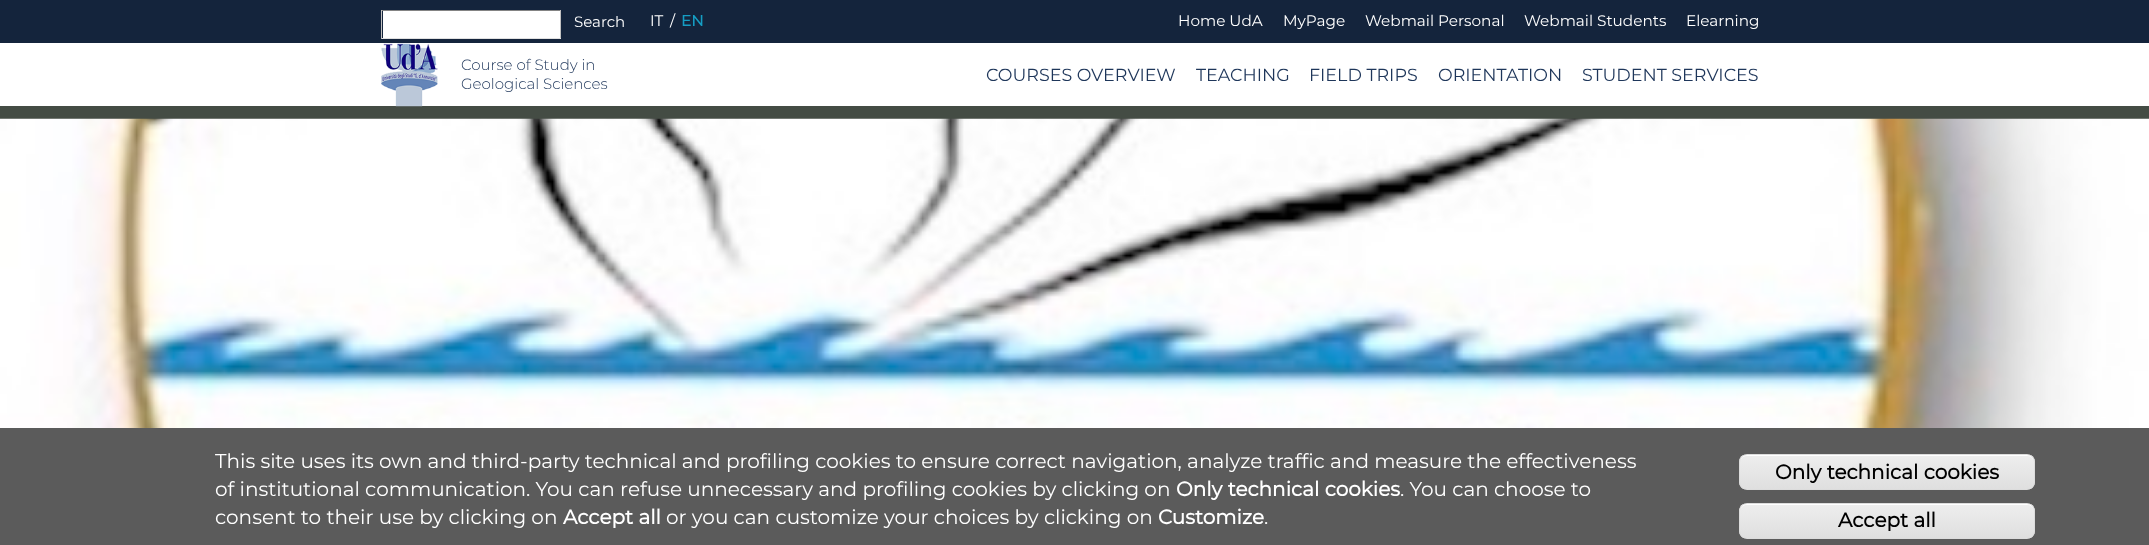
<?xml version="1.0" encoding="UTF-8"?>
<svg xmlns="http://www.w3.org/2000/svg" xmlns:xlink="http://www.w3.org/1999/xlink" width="2149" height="545">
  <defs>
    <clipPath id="clip1"><rect x="1739" y="454" width="296" height="36" rx="8" /></clipPath>
    <linearGradient id="g1" gradientUnits="userSpaceOnUse" x1="1887" y1="455" x2="1887" y2="489"><stop offset="0.05" stop-color="#ededed" /><stop offset="1" stop-color="#dfdfdf" /></linearGradient>
    <clipPath id="clip2"><rect x="1739" y="503" width="296" height="36" rx="8" /></clipPath>
    <linearGradient id="g2" gradientUnits="userSpaceOnUse" x1="1887" y1="504" x2="1887" y2="538"><stop offset="0.05" stop-color="#ededed" /><stop offset="1" stop-color="#dfdfdf" /></linearGradient>
  </defs>
  <rect width="100%" height="100%" fill="#ffffff" />
  <rect width="2149" height="43" fill="#14243c" />
  <rect x="383" y="11" width="177" height="27" fill="#ffffff" />
  <rect x="381" y="10" width="180" height="1" fill="#848484" />
  <rect x="560" y="10" width="1" height="29" fill="#c1c1c1" />
  <rect x="381" y="38" width="180" height="1" fill="#e1e1e1" />
  <rect x="381" y="10" width="1" height="29" fill="#c1c1c1" />
  <rect y="106" width="2149" height="13" fill="#444c44" />
  <image x="381" y="43" width="57" height="64" xlink:href="image1.png" />
  <image x="0" y="118" width="2149" height="310" xlink:href="image2.png" />
  <rect y="428" width="2149" height="117" fill="#5b5b5b" />
  <g clip-path="url(#clip1)">
    <rect x="1739" y="455" width="296" height="34" fill="url(#g1)" />
  </g>
  <path d="M 1746 456 h 282 c 3 0 6 3 6 6 c 0 -4 -2 -7 -6 -7 h -282 c -4 0 -6 3 -6 7 c 0 -3 3 -6 6 -6 z" fill="#ffffff" />
  <rect x="1739.5" y="454.5" width="295" height="35" rx="7.5" fill="none" stroke="#dcdcdc" />
  <g clip-path="url(#clip2)">
    <rect x="1739" y="504" width="296" height="34" fill="url(#g2)" />
  </g>
  <path d="M 1746 505 h 282 c 3 0 6 3 6 6 c 0 -4 -2 -7 -6 -7 h -282 c -4 0 -6 3 -6 7 c 0 -3 3 -6 6 -6 z" fill="#ffffff" />
  <rect x="1739.5" y="503.5" width="295" height="35" rx="7.5" fill="none" stroke="#dcdcdc" />
  <text x="574" y="27" style="font-family: Montserrat; font-size: 15px; fill: #ffffff">Search</text>
  <text x="650" y="26" style="font-family: Montserrat; font-size: 15.25px; fill: #ffffff">IT</text>
  <text x="670" y="26" style="font-family: Montserrat; font-size: 15.25px; fill: #ffffff">/</text>
  <text x="681" y="26" style="font-family: Montserrat; font-size: 15.25px; font-weight: bold; fill: #159dc3">EN</text>
  <text x="1178" y="26" style="font-family: Montserrat; font-size: 15.25px; fill: #ffffff">Home UdA</text>
  <text x="1283" y="26" style="font-family: Montserrat; font-size: 15.25px; fill: #ffffff">MyPage</text>
  <text x="1365" y="26" style="font-family: Montserrat; font-size: 15.25px; fill: #ffffff">Webmail Personal</text>
  <text x="1524" y="26" style="font-family: Montserrat; font-size: 15.25px; fill: #ffffff">Webmail Students</text>
  <text x="1686" y="26" style="font-family: Montserrat; font-size: 15.25px; fill: #ffffff">Elearning</text>
  <text x="461" y="70" style="font-family: Montserrat; font-size: 15px; font-weight: 300; fill: #1e365a">Course of Study in</text>
  <text x="461" y="89" style="font-family: Montserrat; font-size: 15px; font-weight: 300; fill: #1e365a">Geological Sciences</text>
  <text x="986" y="81" style="font-family: Montserrat; font-size: 17.5px; fill: #1e365a">COURSES OVERVIEW</text>
  <text x="1196" y="81" style="font-family: Montserrat; font-size: 17.5px; fill: #1e365a">TEACHING</text>
  <text x="1309" y="81" style="font-family: Montserrat; font-size: 17.5px; fill: #1e365a">FIELD TRIPS</text>
  <text x="1438" y="81" style="font-family: Montserrat; font-size: 17.5px; fill: #1e365a">ORIENTATION</text>
  <text x="1582" y="81" style="font-family: Montserrat; font-size: 17.5px; fill: #1e365a">STUDENT SERVICES</text>
  <text x="215" y="468" style="font-family: Montserrat; font-size: 20px; fill: #ffffff">This site uses its own and third-party technical and profiling cookies to ensure correct navigation, analyze traffic and measure the effectiveness</text>
  <text x="215" y="496" style="font-family: Montserrat; font-size: 20px; fill: #ffffff">of institutional communication. You can refuse unnecessary and profiling cookies by clicking on</text>
  <text x="1176" y="496" style="font-family: Montserrat; font-size: 20px; font-weight: bold; fill: #ffffff">Only technical cookies</text>
  <text x="1400" y="496" style="font-family: Montserrat; font-size: 20px; fill: #ffffff">. You can choose to</text>
  <text x="215" y="524" style="font-family: Montserrat; font-size: 20px; fill: #ffffff">consent to their use by clicking on</text>
  <text x="563" y="524" style="font-family: Montserrat; font-size: 20px; font-weight: bold; fill: #ffffff">Accept all</text>
  <text x="666" y="524" style="font-family: Montserrat; font-size: 20px; fill: #ffffff">or you can customize your choices by clicking on</text>
  <text x="1158" y="524" style="font-family: Montserrat; font-size: 20px; font-weight: bold; fill: #ffffff">Customize</text>
  <text x="1264" y="524" style="font-family: Montserrat; font-size: 20px; fill: #ffffff">.</text>
  <text x="1775" y="479" style="font-family: Montserrat; font-size: 20px; font-weight: bold; fill: #000000">Only technical cookies</text>
  <text x="1838" y="527" style="font-family: Montserrat; font-size: 20px; font-weight: bold; fill: #000000">Accept all</text>
</svg>
